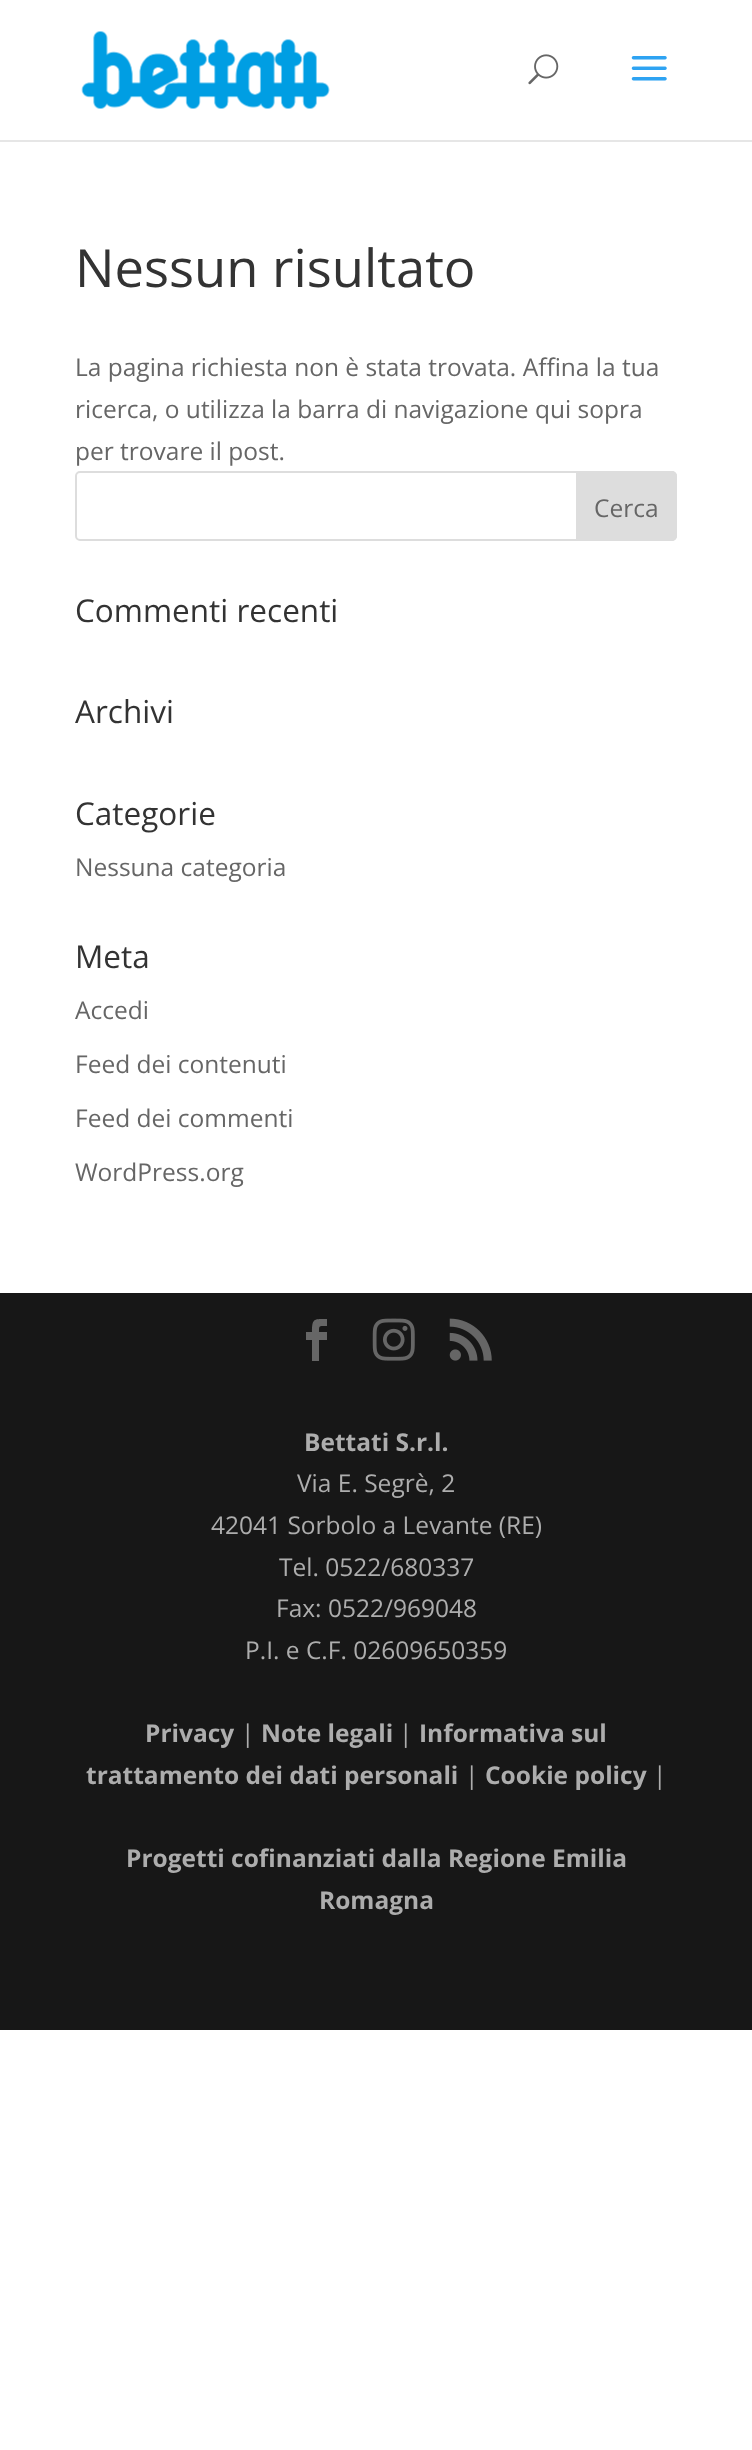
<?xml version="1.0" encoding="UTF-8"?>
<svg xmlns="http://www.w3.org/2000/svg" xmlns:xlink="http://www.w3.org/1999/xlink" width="752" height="2450">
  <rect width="100%" height="100%" fill="#ffffff" />
  <path d="M 0 140 v 2 h 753 v -140 h -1 v 138 z" fill="#e6e6e6" />
  <image x="81" y="31" width="249" height="78" xlink:href="image1.png" />
  <image x="528" y="54" width="31" height="31" xlink:href="image2.png" />
  <image x="631" y="56" width="36" height="25" xlink:href="image3.png" />
  <rect x="76" y="472" width="600" height="68" rx="4" fill="none" stroke="#dddddd" stroke-width="2" />
  <path d="M 577 472 h 95 c 2 0 4 2 4 4 v 60 c 0 2 -2 4 -4 4 h -95 z" fill="#dddddd" stroke="#dddddd" stroke-width="2" />
  <rect y="1293" width="752" height="737" fill="#171717" />
  <path d="M 312 1361 h 7 v -21 h 8 v -8 h -8 c 0 -7 0 -6 8 -6 v -7 c -13 0 -15 -1 -15 13 h -6 v 8 h 6 z" fill="#666666" />
  <image x="372" y="1318" width="43" height="43" xlink:href="image4.png" />
  <image x="449" y="1318" width="43" height="43" xlink:href="image5.png" />
  <text x="75" y="287" style="font-family: Open Sans; font-size: 52.5px; fill: #333333">Nessun risultato</text>
  <text x="75" y="376" style="font-family: Open Sans; font-size: 24.5px; fill: #666666">La pagina richiesta non è stata trovata. Affina la tua</text>
  <text x="75" y="418" style="font-family: Open Sans; font-size: 24.5px; fill: #666666">ricerca, o utilizza la barra di navigazione qui sopra</text>
  <text x="75" y="460" style="font-family: Open Sans; font-size: 24.5px; fill: #666666">per trovare il post.</text>
  <text x="594" y="517" style="font-family: Open Sans; font-size: 24.5px; fill: #666666">Cerca</text>
  <text x="75" y="622" style="font-family: Open Sans; font-size: 31.5px; fill: #333333">Commenti recenti</text>
  <text x="75" y="723" style="font-family: Open Sans; font-size: 31.5px; fill: #333333">Archivi</text>
  <text x="75" y="825" style="font-family: Open Sans; font-size: 31.5px; fill: #333333">Categorie</text>
  <text x="75" y="876" style="font-family: Open Sans; font-size: 24.5px; fill: #666666">Nessuna categoria</text>
  <text x="75" y="968" style="font-family: Open Sans; font-size: 31.5px; fill: #333333">Meta</text>
  <text x="75" y="1019" style="font-family: Open Sans; font-size: 24.5px; fill: #666666">Accedi</text>
  <text x="75" y="1073" style="font-family: Open Sans; font-size: 24.5px; fill: #666666">Feed dei contenuti</text>
  <text x="75" y="1127" style="font-family: Open Sans; font-size: 24.5px; fill: #666666">Feed dei commenti</text>
  <text x="75" y="1181" style="font-family: Open Sans; font-size: 24.5px; fill: #666666">WordPress.org</text>
  <text x="304" y="1451" style="font-family: Open Sans; font-size: 24.5px; font-weight: bold; fill: #adadad">Bettati S.r.l.</text>
  <text x="297" y="1492" style="font-family: Open Sans; font-size: 24.5px; fill: #adadad">Via E. Segrè, 2</text>
  <text x="211" y="1534" style="font-family: Open Sans; font-size: 24.5px; fill: #adadad">42041 Sorbolo a Levante (RE)</text>
  <text x="279" y="1576" style="font-family: Open Sans; font-size: 24.5px; fill: #adadad">Tel. 0522/680337</text>
  <text x="276" y="1617" style="font-family: Open Sans; font-size: 24.5px; fill: #adadad">Fax: 0522/969048</text>
  <text x="245" y="1659" style="font-family: Open Sans; font-size: 24.5px; fill: #adadad">P.I. e C.F. 02609650359</text>
  <text x="145" y="1742" style="font-family: Open Sans; font-size: 24.5px; font-weight: bold; fill: #adadad">Privacy</text>
  <text x="241" y="1742" style="font-family: Open Sans; font-size: 24.5px; fill: #adadad">|</text>
  <text x="261" y="1742" style="font-family: Open Sans; font-size: 24.5px; font-weight: bold; fill: #adadad">Note legali</text>
  <text x="399" y="1742" style="font-family: Open Sans; font-size: 24.5px; fill: #adadad">|</text>
  <text x="419" y="1742" style="font-family: Open Sans; font-size: 24.5px; font-weight: bold; fill: #adadad">Informativa sul</text>
  <text x="86" y="1784" style="font-family: Open Sans; font-size: 24.5px; font-weight: bold; fill: #adadad">trattamento dei dati personali</text>
  <text x="465" y="1784" style="font-family: Open Sans; font-size: 24.5px; fill: #adadad">|</text>
  <text x="485" y="1784" style="font-family: Open Sans; font-size: 24.5px; font-weight: bold; fill: #adadad">Cookie policy</text>
  <text x="653" y="1784" style="font-family: Open Sans; font-size: 24.5px; fill: #adadad">|</text>
  <text x="126" y="1867" style="font-family: Open Sans; font-size: 24.5px; font-weight: bold; fill: #adadad">Progetti cofinanziati dalla Regione Emilia</text>
  <text x="319" y="1909" style="font-family: Open Sans; font-size: 24.5px; font-weight: bold; fill: #adadad">Romagna</text>
</svg>
